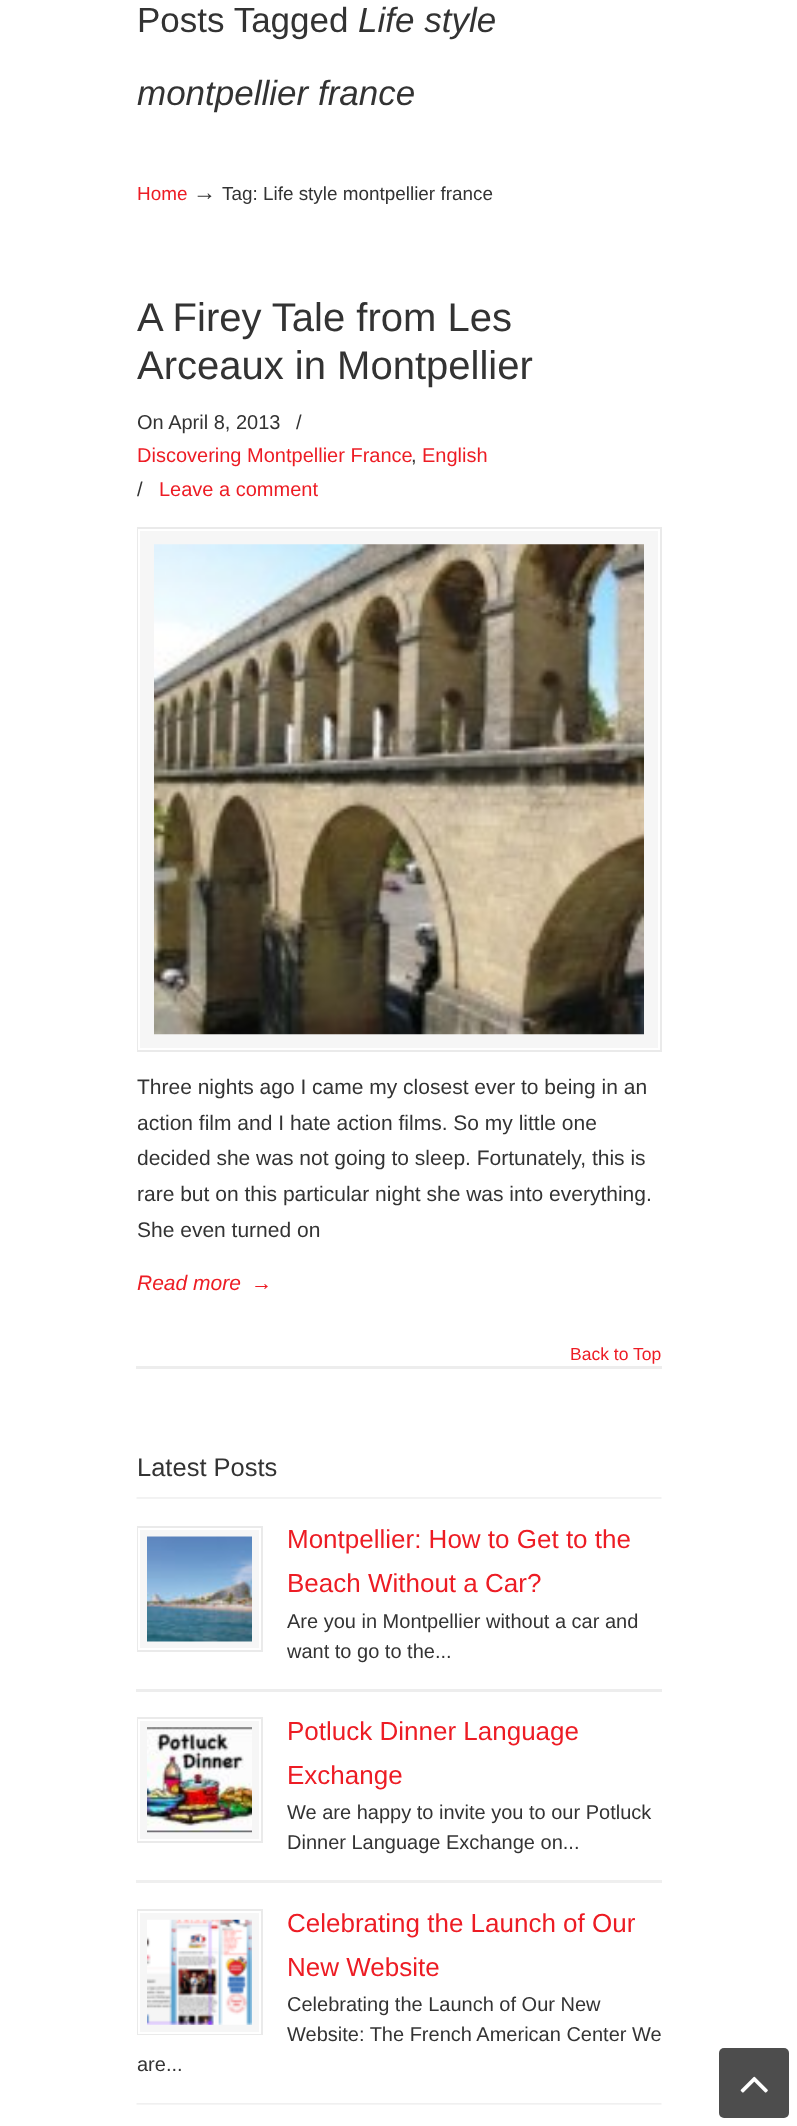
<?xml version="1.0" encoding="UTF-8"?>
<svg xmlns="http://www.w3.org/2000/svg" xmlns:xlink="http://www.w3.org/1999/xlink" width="797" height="2126">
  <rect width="100%" height="100%" fill="#ffffff" />
  <rect x="140" y="531" width="518" height="517" fill="#f6f6f6" />
  <rect x="138" y="528" width="523" height="523" fill="none" stroke="#eaeaea" stroke-width="2" />
  <rect x="139" y="530" width="520" height="519" fill="none" stroke="#ffffff" stroke-width="2" />
  <image x="154" y="544" width="490" height="491" xlink:href="image1.png" />
  <rect x="136" y="1366" width="526" height="3" fill="#ededed" />
  <image x="136" y="1497" width="526" height="2" xlink:href="image2.png" />
  <rect x="136" y="1689" width="526" height="3" fill="#ededed" />
  <rect x="140" y="1530" width="119" height="118" fill="#f6f6f6" />
  <rect x="138" y="1527" width="124" height="124" fill="none" stroke="#eaeaea" stroke-width="2" />
  <rect x="139" y="1529" width="121" height="120" fill="none" stroke="#ffffff" stroke-width="2" />
  <image x="147" y="1536" width="105" height="106" xlink:href="image3.png" />
  <rect x="136" y="1880" width="526" height="3" fill="#efefef" />
  <rect x="140" y="1721" width="119" height="118" fill="#f6f6f6" />
  <rect x="138" y="1718" width="124" height="124" fill="none" stroke="#eaeaea" stroke-width="2" />
  <rect x="139" y="1720" width="121" height="120" fill="none" stroke="#ffffff" stroke-width="2" />
  <image x="147" y="1727" width="105" height="106" xlink:href="image4.png" />
  <image x="136" y="2103" width="526" height="2" xlink:href="image5.png" />
  <rect x="140" y="1913" width="119" height="119" fill="#f6f6f6" />
  <rect x="138" y="1910" width="124" height="124" fill="none" stroke="#eaeaea" stroke-width="2" />
  <rect x="139" y="1912" width="121" height="121" fill="none" stroke="#ffffff" stroke-width="2" />
  <image x="147" y="1919" width="105" height="106" xlink:href="image6.png" />
  <rect x="719" y="2048" width="70" height="70" rx="5" fill="#4d4d4d" />
  <image x="740" y="2076" width="28" height="17" xlink:href="image7.png" />
  <text x="137" y="32" style="font-family: Liberation Sans; font-size: 35px; fill: #333333">Posts Tagged</text>
  <text x="358" y="32" style="font-family: Liberation Sans; font-size: 35px; font-style: italic; fill: #333333">Life style</text>
  <text x="137" y="105" style="font-family: Liberation Sans; font-size: 35px; font-style: italic; fill: #333333">montpellier france</text>
  <text x="137" y="200" style="font-family: Liberation Sans; font-size: 18.9px; fill: #ed1c24">Home</text>
  <text x="193" y="200" style="font-family: Liberation Sans; font-size: 23px; fill: #333333">→</text>
  <text x="222" y="200" style="font-family: Liberation Sans; font-size: 18.9px; fill: #333333">Tag: Life style montpellier france</text>
  <text x="137" y="331" style="font-family: Liberation Sans; font-size: 40px; fill: #333333">A Firey Tale from Les</text>
  <text x="137" y="379" style="font-family: Liberation Sans; font-size: 40px; fill: #333333">Arceaux in Montpellier</text>
  <text x="137" y="429" style="font-family: Liberation Sans; font-size: 20px; fill: #333333">On April 8, 2013</text>
  <text x="296" y="429" style="font-family: Liberation Sans; font-size: 20px; fill: #333333">/</text>
  <text x="137" y="462" style="font-family: Liberation Sans; font-size: 20px; fill: #ed1c24">Discovering Montpellier France</text>
  <text x="411" y="462" style="font-family: Liberation Sans; font-size: 20px; fill: #333333">,</text>
  <text x="422" y="462" style="font-family: Liberation Sans; font-size: 20px; fill: #ed1c24">English</text>
  <text x="137" y="496" style="font-family: Liberation Sans; font-size: 20px; fill: #333333">/</text>
  <text x="159" y="496" style="font-family: Liberation Sans; font-size: 20px; fill: #ed1c24">Leave a comment</text>
  <text x="137" y="1094" style="font-family: Liberation Sans; font-size: 21px; fill: #333333">Three nights ago I came my closest ever to being in an</text>
  <text x="137" y="1130" style="font-family: Liberation Sans; font-size: 21px; fill: #333333">action film and I hate action films. So my little one</text>
  <text x="137" y="1165" style="font-family: Liberation Sans; font-size: 21px; fill: #333333">decided she was not going to sleep. Fortunately, this is</text>
  <text x="137" y="1201" style="font-family: Liberation Sans; font-size: 21px; fill: #333333">rare but on this particular night she was into everything.</text>
  <text x="137" y="1237" style="font-family: Liberation Sans; font-size: 21px; fill: #333333">She even turned on</text>
  <text x="137" y="1290" style="font-family: Liberation Sans; font-size: 21px; font-style: italic; fill: #ed1c24">Read more</text>
  <text x="251" y="1290" style="font-family: Liberation Sans; font-size: 21px; fill: #ed1c24">→</text>
  <text x="570" y="1360" style="font-family: Liberation Sans; font-size: 17.5px; fill: #ed1c24">Back to Top</text>
  <text x="137" y="1476" style="font-family: Liberation Sans; font-size: 25.5px; fill: #333333">Latest Posts</text>
  <text x="287" y="1548" style="font-family: Liberation Sans; font-size: 26px; fill: #ed1c24">Montpellier: How to Get to the</text>
  <text x="287" y="1592" style="font-family: Liberation Sans; font-size: 26px; fill: #ed1c24">Beach Without a Car?</text>
  <text x="287" y="1628" style="font-family: Liberation Sans; font-size: 20px; fill: #333333">Are you in Montpellier without a car and</text>
  <text x="287" y="1658" style="font-family: Liberation Sans; font-size: 20px; fill: #333333">want to go to the...</text>
  <text x="287" y="1740" style="font-family: Liberation Sans; font-size: 26px; fill: #ed1c24">Potluck Dinner Language</text>
  <text x="287" y="1784" style="font-family: Liberation Sans; font-size: 26px; fill: #ed1c24">Exchange</text>
  <text x="287" y="1819" style="font-family: Liberation Sans; font-size: 20px; fill: #333333">We are happy to invite you to our Potluck</text>
  <text x="287" y="1849" style="font-family: Liberation Sans; font-size: 20px; fill: #333333">Dinner Language Exchange on...</text>
  <text x="287" y="1932" style="font-family: Liberation Sans; font-size: 26px; fill: #ed1c24">Celebrating the Launch of Our</text>
  <text x="287" y="1976" style="font-family: Liberation Sans; font-size: 26px; fill: #ed1c24">New Website</text>
  <text x="287" y="2011" style="font-family: Liberation Sans; font-size: 20px; fill: #333333">Celebrating the Launch of Our New</text>
  <text x="287" y="2041" style="font-family: Liberation Sans; font-size: 20px; fill: #333333">Website: The French American Center We</text>
  <text x="137" y="2071" style="font-family: Liberation Sans; font-size: 20px; fill: #333333">are...</text>
</svg>
